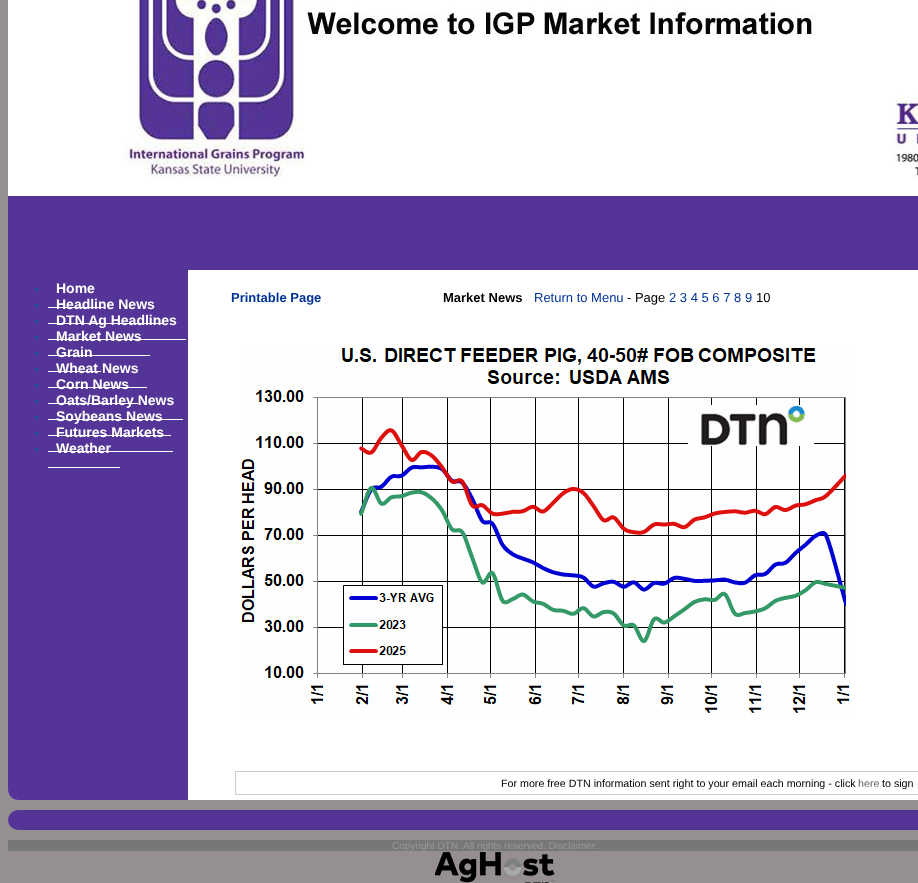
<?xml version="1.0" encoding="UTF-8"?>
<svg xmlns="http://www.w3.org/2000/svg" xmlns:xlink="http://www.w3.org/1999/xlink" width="918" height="883">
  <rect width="100%" height="100%" fill="#958f8f" />
  <rect x="8" y="-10" width="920" height="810" rx="10" fill="#ffffff" />
  <image x="122" y="0" width="796" height="181" xlink:href="image1.png" />
  <rect x="8" y="196" width="910" height="74" fill="#543497" />
  <path d="M 8 270 h 180 v 530 h -170 c -5.5 0 -10 -4.5 -10 -10 z" fill="#543497" />
  <circle cx="36.5" cy="289.5" r="1.5" fill="#0161a5" />
  <rect x="48" y="307" width="56" height="1" fill="#ffffff" />
  <circle cx="36.5" cy="305.5" r="1.5" fill="#0161a5" />
  <rect x="48" y="323" width="116" height="1" fill="#ffffff" />
  <circle cx="36.5" cy="321.5" r="1.5" fill="#0161a5" />
  <rect x="48" y="339" width="138" height="1" fill="#ffffff" />
  <circle cx="36.5" cy="337.5" r="1.5" fill="#0161a5" />
  <rect x="48" y="355" width="102" height="1" fill="#ffffff" />
  <circle cx="36.5" cy="353.5" r="1.5" fill="#0161a5" />
  <rect x="48" y="371" width="53" height="1" fill="#ffffff" />
  <circle cx="36.5" cy="369.5" r="1.5" fill="#0161a5" />
  <rect x="48" y="387" width="99" height="1" fill="#ffffff" />
  <circle cx="36.5" cy="385.5" r="1.5" fill="#0161a5" />
  <rect x="48" y="403" width="90" height="1" fill="#ffffff" />
  <circle cx="36.5" cy="401.5" r="1.5" fill="#0161a5" />
  <rect x="48" y="419" width="135" height="1" fill="#ffffff" />
  <circle cx="36.5" cy="417.5" r="1.5" fill="#0161a5" />
  <rect x="48" y="435" width="123" height="1" fill="#ffffff" />
  <circle cx="36.5" cy="433.5" r="1.5" fill="#0161a5" />
  <rect x="48" y="451" width="125" height="1" fill="#ffffff" />
  <circle cx="36.5" cy="449.5" r="1.5" fill="#0161a5" />
  <rect x="48" y="467" width="72" height="1" fill="#ffffff" />
  <image x="241" y="348" width="609" height="365" xlink:href="image2.png" />
  <rect x="235.5" y="771.5" width="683" height="23" fill="none" stroke="#cccccc" />
  <rect x="8" y="810" width="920" height="20" rx="10" fill="#543497" />
  <rect x="8" y="840" width="910" height="11" fill="#777777" />
  <image x="435" y="852" width="120" height="31" xlink:href="image3.png" />
  <text x="56" y="293" style="font-family: Liberation Sans; font-size: 14px; font-weight: bold; fill: #ffffff">Home</text>
  <text x="56" y="309" style="font-family: Liberation Sans; font-size: 14px; font-weight: bold; fill: #ffffff">Headline News</text>
  <text x="56" y="325" style="font-family: Liberation Sans; font-size: 14px; font-weight: bold; fill: #ffffff">DTN Ag Headlines</text>
  <text x="56" y="341" style="font-family: Liberation Sans; font-size: 14px; font-weight: bold; fill: #ffffff">Market News</text>
  <text x="56" y="357" style="font-family: Liberation Sans; font-size: 14px; font-weight: bold; fill: #ffffff">Grain</text>
  <text x="56" y="373" style="font-family: Liberation Sans; font-size: 14px; font-weight: bold; fill: #ffffff">Wheat News</text>
  <text x="56" y="389" style="font-family: Liberation Sans; font-size: 14px; font-weight: bold; fill: #ffffff">Corn News</text>
  <text x="56" y="405" style="font-family: Liberation Sans; font-size: 14px; font-weight: bold; fill: #ffffff">Oats/Barley News</text>
  <text x="56" y="421" style="font-family: Liberation Sans; font-size: 14px; font-weight: bold; fill: #ffffff">Soybeans News</text>
  <text x="56" y="437" style="font-family: Liberation Sans; font-size: 14px; font-weight: bold; fill: #ffffff">Futures Markets</text>
  <text x="56" y="453" style="font-family: Liberation Sans; font-size: 14px; font-weight: bold; fill: #ffffff">Weather</text>
  <text x="231" y="302" style="font-family: Liberation Sans; font-size: 13px; font-weight: bold; fill: #003399">Printable Page</text>
  <text x="443" y="302" style="font-family: Liberation Sans; font-size: 13px; font-weight: bold; fill: #000000">Market News</text>
  <text x="534" y="302" style="font-family: Liberation Sans; font-size: 13px; fill: #003399">Return to Menu</text>
  <text x="627" y="302" style="font-family: Liberation Sans; font-size: 13px; fill: #000000">- Page</text>
  <text x="669" y="302" style="font-family: Liberation Sans; font-size: 13px; fill: #003399">2 3 4 5 6 7 8 9</text>
  <text x="756" y="302" style="font-family: Liberation Sans; font-size: 13px; fill: #000000">10</text>
  <text x="501" y="787" style="font-family: Liberation Sans; font-size: 10.7px; fill: #000000">For more free DTN information sent right to your email each morning - click</text>
  <text x="858" y="787" style="font-family: Liberation Sans; font-size: 10.7px; fill: #666666">here</text>
  <text x="882" y="787" style="font-family: Liberation Sans; font-size: 10.7px; fill: #000000">to sign</text>
  <text x="392" y="849" style="font-family: Liberation Sans; font-size: 10px; fill: #999999">Copyright DTN.</text>
  <text x="463" y="849" style="font-family: Liberation Sans; font-size: 10px; fill: #999999">All rights reserved. Disclaimer</text>
  <text x="595" y="849" style="font-family: Liberation Sans; font-size: 10px; fill: #999999">.</text>
</svg>
